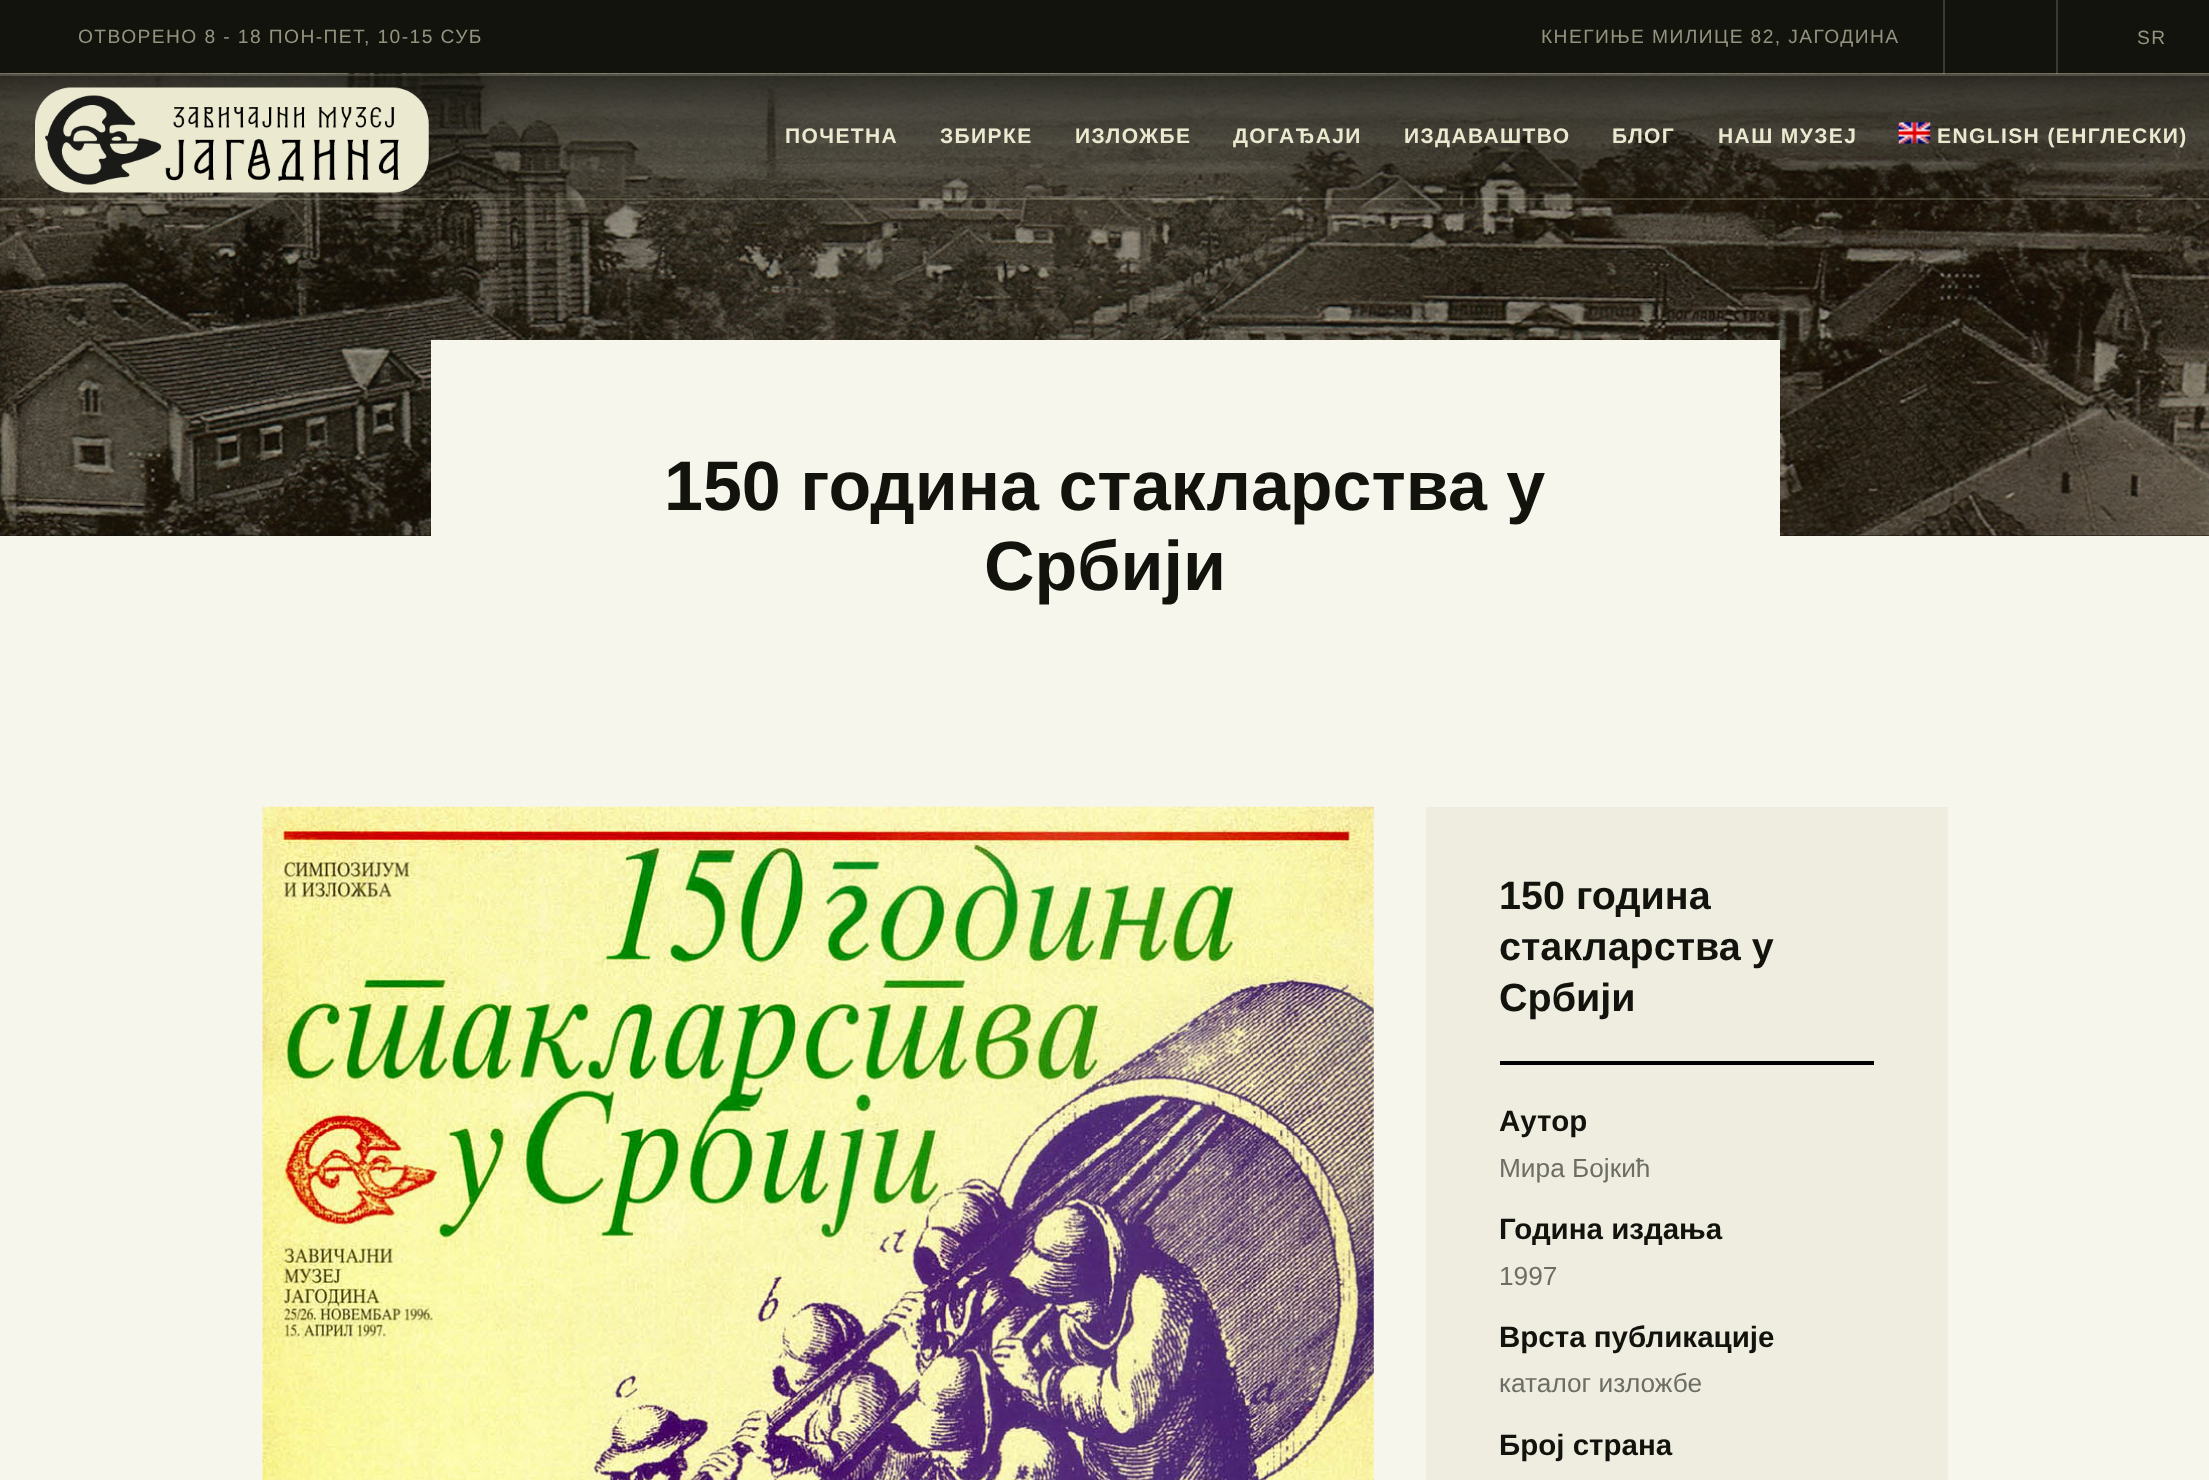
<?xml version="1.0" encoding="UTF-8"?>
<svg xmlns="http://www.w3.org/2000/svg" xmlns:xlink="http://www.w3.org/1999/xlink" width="2209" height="1480">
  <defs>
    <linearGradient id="g1" gradientUnits="userSpaceOnUse" x1="1105" y1="536" x2="1105" y2="74"><stop offset="0.7" stop-color="#13130d" stop-opacity="0" /><stop offset="1" stop-color="#13130d" stop-opacity="0.8" /></linearGradient>
  </defs>
  <rect width="100%" height="100%" fill="#f7f6ec" />
  <rect width="2209" height="74" fill="#13130d" />
  <rect x="2056" width="2" height="74" fill="#3b3a31" />
  <rect x="1943" width="2" height="74" fill="#3b3a31" />
  <rect y="535" width="2209" height="1" fill="#13130d" />
  <image x="0" y="73" width="2209" height="463" xlink:href="image1.png" />
  <rect y="74" width="2209" height="135" fill="url(#g1)" />
  <rect y="74" width="2209" height="2" fill="#ebe9cf" fill-opacity="0.2" />
  <rect y="198" width="2209" height="2" fill="#ebe9cf" fill-opacity="0.2" />
  <image x="35" y="87" width="394" height="106" xlink:href="image2.png" />
  <image x="1898" y="122" width="33" height="22" xlink:href="image3.png" />
  <rect x="431" y="340" width="1349" height="196" fill="#f7f6ec" />
  <image x="262" y="806" width="1112" height="674" xlink:href="image4.png" />
  <rect x="1426" y="807" width="522" height="673" fill="#eeede0" />
  <rect x="1500" y="1061" width="374" height="4" fill="#000000" />
  <text x="78" y="43" style="font-family: Liberation Sans; font-size: 19.25px; letter-spacing: 1.4px; fill: #949380">ОТВОРЕНО 8 - 18 ПОН-ПЕТ, 10-15 СУБ</text>
  <text x="1541" y="43" style="font-family: Liberation Sans; font-size: 19.25px; letter-spacing: 1.4px; fill: #949380">КНЕГИЊЕ МИЛИЦЕ 82, ЈАГОДИНА</text>
  <text x="2137" y="44" style="font-family: Liberation Sans; font-size: 19.25px; letter-spacing: 1.4px; fill: #949380">SR</text>
  <text x="785" y="143" style="font-family: Liberation Sans; font-size: 21px; font-weight: bold; letter-spacing: 1.4px; fill: #ebe9cf">ПОЧЕТНА</text>
  <text x="940" y="143" style="font-family: Liberation Sans; font-size: 21px; font-weight: bold; letter-spacing: 1.4px; fill: #ebe9cf">ЗБИРКЕ</text>
  <text x="1075" y="143" style="font-family: Liberation Sans; font-size: 21px; font-weight: bold; letter-spacing: 1.4px; fill: #ebe9cf">ИЗЛОЖБЕ</text>
  <text x="1233" y="143" style="font-family: Liberation Sans; font-size: 21px; font-weight: bold; letter-spacing: 1.4px; fill: #ebe9cf">ДОГАЂАЈИ</text>
  <text x="1404" y="143" style="font-family: Liberation Sans; font-size: 21px; font-weight: bold; letter-spacing: 1.4px; fill: #ebe9cf">ИЗДАВАШТВО</text>
  <text x="1612" y="143" style="font-family: Liberation Sans; font-size: 21px; font-weight: bold; letter-spacing: 1.4px; fill: #ebe9cf">БЛОГ</text>
  <text x="1718" y="143" style="font-family: Liberation Sans; font-size: 21px; font-weight: bold; letter-spacing: 1.4px; fill: #ebe9cf">НАШ МУЗЕЈ</text>
  <text x="1937" y="143" style="font-family: Liberation Sans; font-size: 21px; font-weight: bold; letter-spacing: 1.4px; fill: #ebe9cf">ENGLISH (ЕНГЛЕСКИ)</text>
  <text x="664" y="510" style="font-family: Liberation Sans; font-size: 70px; font-weight: bold; fill: #13130d">150 година стакларства у</text>
  <text x="984" y="590" style="font-family: Liberation Sans; font-size: 70px; font-weight: bold; fill: #13130d">Србији</text>
  <text x="1499" y="909" style="font-family: Liberation Sans; font-size: 39.5px; font-weight: bold; fill: #13130d">150 година</text>
  <text x="1499" y="960" style="font-family: Liberation Sans; font-size: 39.5px; font-weight: bold; fill: #13130d">стакларства у</text>
  <text x="1499" y="1011" style="font-family: Liberation Sans; font-size: 39.5px; font-weight: bold; fill: #13130d">Србији</text>
  <text x="1499" y="1131" style="font-family: Liberation Sans; font-size: 29.5px; font-weight: bold; fill: #13130d">Аутор</text>
  <text x="1499" y="1177" style="font-family: Liberation Sans; font-size: 26.25px; fill: #6d6d65">Мира Бојкић</text>
  <text x="1499" y="1239" style="font-family: Liberation Sans; font-size: 29.5px; font-weight: bold; fill: #13130d">Година издања</text>
  <text x="1499" y="1285" style="font-family: Liberation Sans; font-size: 26.25px; fill: #6d6d65">1997</text>
  <text x="1499" y="1347" style="font-family: Liberation Sans; font-size: 29.5px; font-weight: bold; fill: #13130d">Врста публикације</text>
  <text x="1499" y="1392" style="font-family: Liberation Sans; font-size: 26.25px; fill: #6d6d65">каталог изложбе</text>
  <text x="1499" y="1455" style="font-family: Liberation Sans; font-size: 29.5px; font-weight: bold; fill: #13130d">Број страна</text>
</svg>
